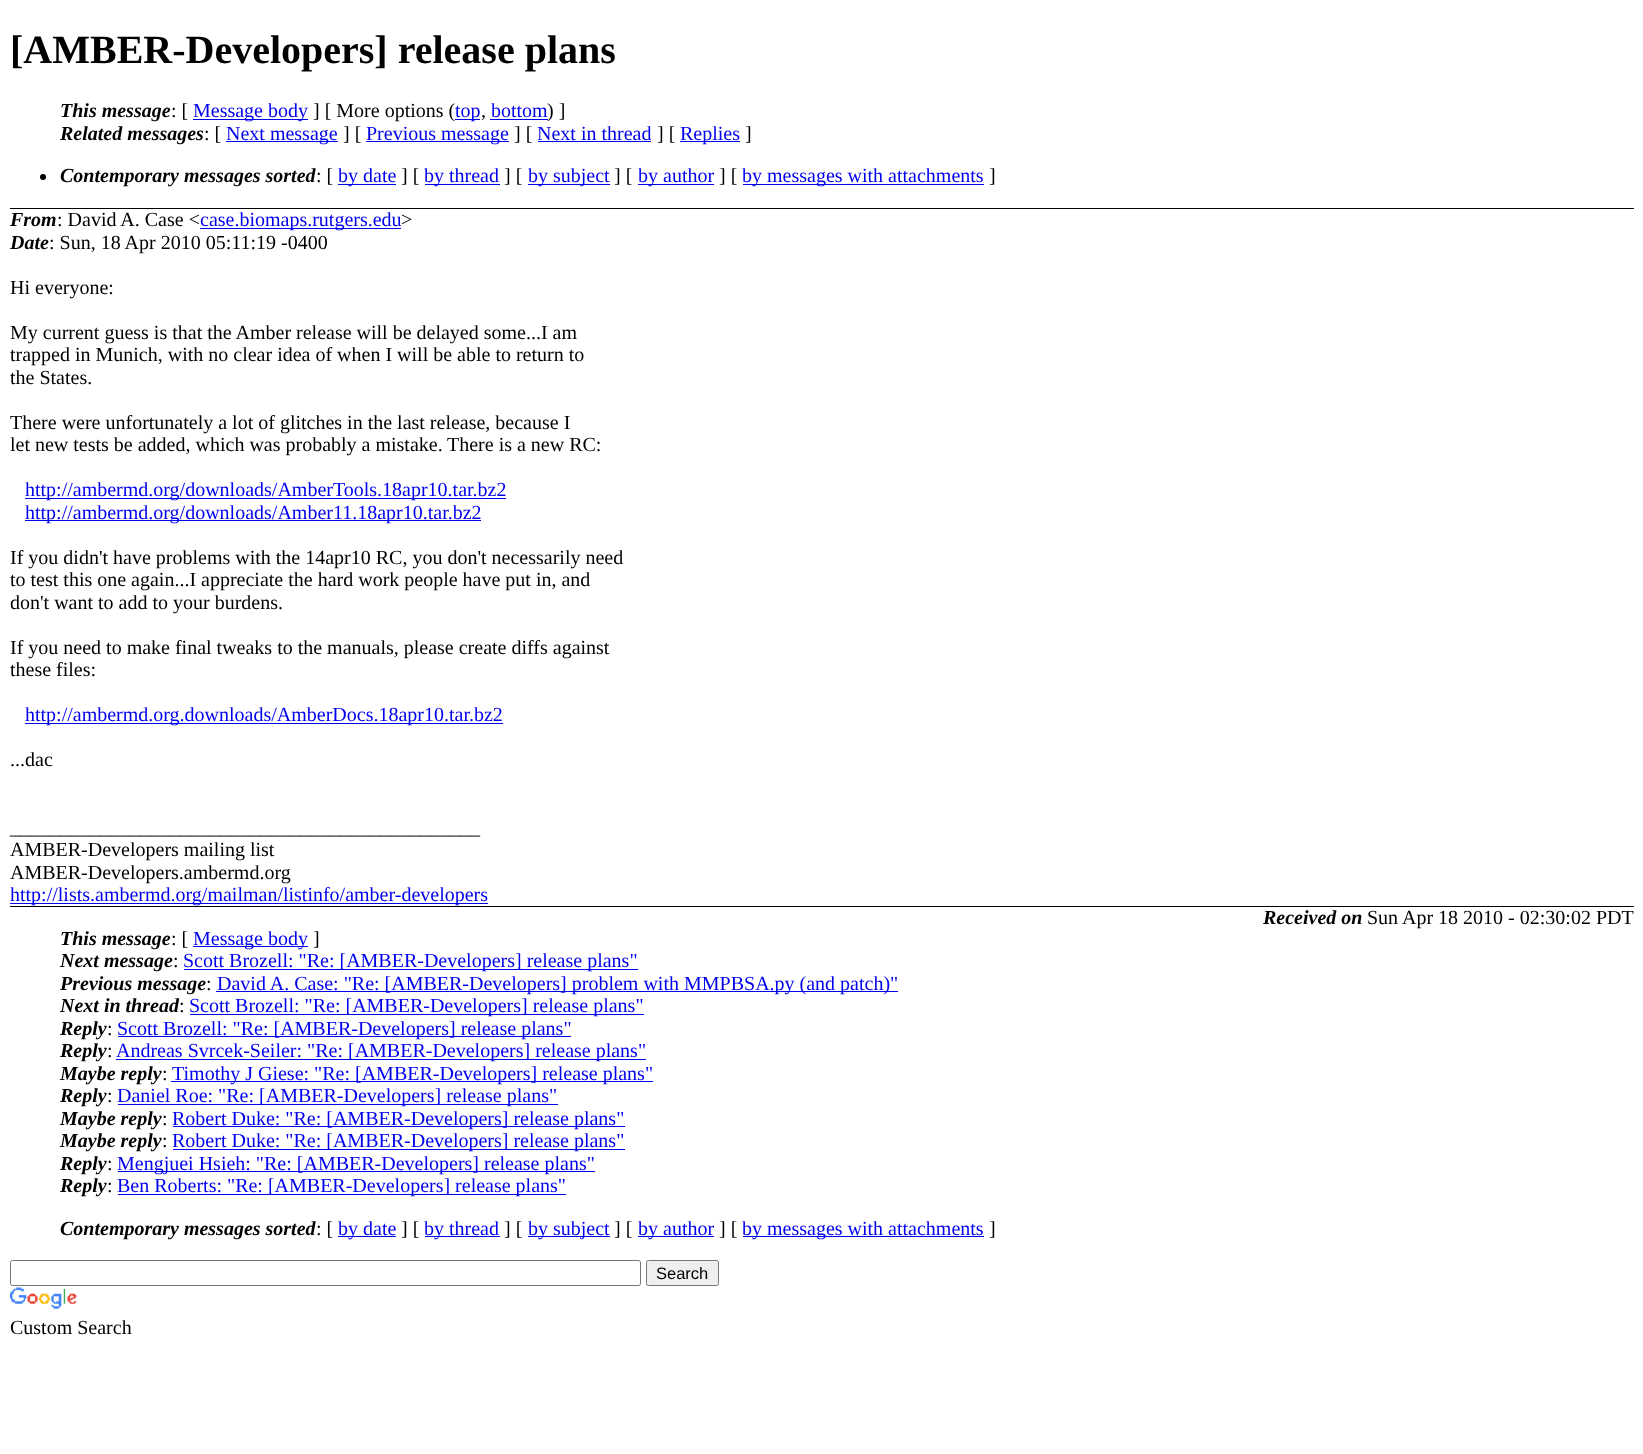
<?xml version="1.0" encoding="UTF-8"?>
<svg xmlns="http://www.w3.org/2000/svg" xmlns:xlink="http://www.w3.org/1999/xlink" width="1643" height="1454">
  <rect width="100%" height="100%" fill="#ffffff" />
  <rect x="10" y="208" width="1624" height="1" fill="#000000" />
  <rect x="193" y="119" width="115" height="1" fill="#0000ee" />
  <rect x="455" y="119" width="25" height="1" fill="#0000ee" />
  <rect x="490" y="119" width="58" height="1" fill="#0000ee" />
  <rect x="226" y="141" width="112" height="1" fill="#0000ee" />
  <rect x="366" y="141" width="143" height="1" fill="#0000ee" />
  <rect x="538" y="141" width="113" height="1" fill="#0000ee" />
  <rect x="680" y="141" width="60" height="1" fill="#0000ee" />
  <circle cx="43" cy="177" r="3" fill="#000000" />
  <rect x="338" y="184" width="58" height="1" fill="#0000ee" />
  <rect x="425" y="184" width="75" height="1" fill="#0000ee" />
  <rect x="528" y="184" width="82" height="1" fill="#0000ee" />
  <rect x="638" y="184" width="76" height="1" fill="#0000ee" />
  <rect x="743" y="184" width="241" height="1" fill="#0000ee" />
  <rect x="200" y="228" width="201" height="1" fill="#0000ee" />
  <rect x="25" y="498" width="481" height="1" fill="#0000ee" />
  <rect x="25" y="520" width="456" height="1" fill="#0000ee" />
  <rect x="25" y="723" width="478" height="1" fill="#0000ee" />
  <rect x="10" y="903" width="478" height="1" fill="#0000ee" />
  <rect x="10" y="906" width="1624" height="1" fill="#000000" />
  <rect x="193" y="946" width="115" height="1" fill="#0000ee" />
  <rect x="184" y="969" width="454" height="1" fill="#0000ee" />
  <rect x="216" y="991" width="682" height="1" fill="#0000ee" />
  <rect x="190" y="1014" width="454" height="1" fill="#0000ee" />
  <rect x="118" y="1036" width="453" height="1" fill="#0000ee" />
  <rect x="116" y="1059" width="530" height="1" fill="#0000ee" />
  <rect x="171" y="1081" width="482" height="1" fill="#0000ee" />
  <rect x="118" y="1104" width="440" height="1" fill="#0000ee" />
  <rect x="173" y="1126" width="452" height="1" fill="#0000ee" />
  <rect x="173" y="1149" width="452" height="1" fill="#0000ee" />
  <rect x="118" y="1171" width="477" height="1" fill="#0000ee" />
  <rect x="118" y="1194" width="448" height="1" fill="#0000ee" />
  <rect x="338" y="1236" width="58" height="1" fill="#0000ee" />
  <rect x="425" y="1236" width="75" height="1" fill="#0000ee" />
  <rect x="528" y="1236" width="82" height="1" fill="#0000ee" />
  <rect x="638" y="1236" width="76" height="1" fill="#0000ee" />
  <rect x="743" y="1236" width="241" height="1" fill="#0000ee" />
  <rect x="10.5" y="1260.5" width="630" height="25" rx="2" fill="none" stroke="#767676" />
  <rect x="646.5" y="1260.5" width="72" height="25" rx="2" fill="#efefef" stroke="#767676" />
  <image x="10" y="1287" width="67" height="22" xlink:href="image1.png" />
  <text x="10" y="63" style="font-family: Liberation Serif; font-size: 40px; font-weight: bold; fill: #000000">[AMBER-Developers] release plans</text>
  <text x="60" y="117" style="font-family: Liberation Serif; font-size: 20px; font-weight: bold; font-style: italic; fill: #000000">This message</text>
  <text x="171" y="117" style="font-family: Liberation Serif; font-size: 20px; fill: #000000">: [</text>
  <text x="193" y="117" style="font-family: Liberation Serif; font-size: 20px; fill: #0000ee">Message body</text>
  <text x="313" y="117" style="font-family: Liberation Serif; font-size: 20px; fill: #000000">] [ More options (</text>
  <text x="455" y="117" style="font-family: Liberation Serif; font-size: 20px; fill: #0000ee">top</text>
  <text x="481" y="117" style="font-family: Liberation Serif; font-size: 20px; fill: #000000">,</text>
  <text x="491" y="117" style="font-family: Liberation Serif; font-size: 20px; fill: #0000ee">bottom</text>
  <text x="547" y="117" style="font-family: Liberation Serif; font-size: 20px; fill: #000000">) ]</text>
  <text x="60" y="140" style="font-family: Liberation Serif; font-size: 20px; font-weight: bold; font-style: italic; fill: #000000">Related messages</text>
  <text x="204" y="140" style="font-family: Liberation Serif; font-size: 20px; fill: #000000">: [</text>
  <text x="226" y="140" style="font-family: Liberation Serif; font-size: 20px; fill: #0000ee">Next message</text>
  <text x="343" y="140" style="font-family: Liberation Serif; font-size: 20px; fill: #000000">] [</text>
  <text x="366" y="140" style="font-family: Liberation Serif; font-size: 20px; fill: #0000ee">Previous message</text>
  <text x="514" y="140" style="font-family: Liberation Serif; font-size: 20px; fill: #000000">] [</text>
  <text x="537" y="140" style="font-family: Liberation Serif; font-size: 20px; fill: #0000ee">Next in thread</text>
  <text x="657" y="140" style="font-family: Liberation Serif; font-size: 20px; fill: #000000">] [</text>
  <text x="680" y="140" style="font-family: Liberation Serif; font-size: 20px; fill: #0000ee">Replies</text>
  <text x="745" y="140" style="font-family: Liberation Serif; font-size: 20px; fill: #000000">]</text>
  <text x="60" y="182" style="font-family: Liberation Serif; font-size: 20px; font-weight: bold; font-style: italic; fill: #000000">Contemporary messages sorted</text>
  <text x="316" y="182" style="font-family: Liberation Serif; font-size: 20px; fill: #000000">: [</text>
  <text x="338" y="182" style="font-family: Liberation Serif; font-size: 20px; fill: #0000ee">by date</text>
  <text x="401" y="182" style="font-family: Liberation Serif; font-size: 20px; fill: #000000">] [</text>
  <text x="424" y="182" style="font-family: Liberation Serif; font-size: 20px; fill: #0000ee">by thread</text>
  <text x="504" y="182" style="font-family: Liberation Serif; font-size: 20px; fill: #000000">] [</text>
  <text x="528" y="182" style="font-family: Liberation Serif; font-size: 20px; fill: #0000ee">by subject</text>
  <text x="614" y="182" style="font-family: Liberation Serif; font-size: 20px; fill: #000000">] [</text>
  <text x="638" y="182" style="font-family: Liberation Serif; font-size: 20px; fill: #0000ee">by author</text>
  <text x="719" y="182" style="font-family: Liberation Serif; font-size: 20px; fill: #000000">] [</text>
  <text x="742" y="182" style="font-family: Liberation Serif; font-size: 20px; fill: #0000ee">by messages with attachments</text>
  <text x="989" y="182" style="font-family: Liberation Serif; font-size: 20px; fill: #000000">]</text>
  <text x="10" y="226" style="font-family: Liberation Serif; font-size: 20px; font-weight: bold; font-style: italic; fill: #000000">From</text>
  <text x="57" y="226" style="font-family: Liberation Serif; font-size: 20px; fill: #000000">: David A. Case &lt;</text>
  <text x="200" y="226" style="font-family: Liberation Serif; font-size: 20px; fill: #0000ee">case.biomaps.rutgers.edu</text>
  <text x="401" y="226" style="font-family: Liberation Serif; font-size: 20px; fill: #000000">&gt;</text>
  <text x="10" y="249" style="font-family: Liberation Serif; font-size: 20px; font-weight: bold; font-style: italic; fill: #000000">Date</text>
  <text x="49" y="249" style="font-family: Liberation Serif; font-size: 20px; fill: #000000">: Sun, 18 Apr 2010 05:11:19 -0400</text>
  <text x="10" y="294" style="font-family: Liberation Serif; font-size: 20px; fill: #000000">Hi everyone:</text>
  <text x="10" y="339" style="font-family: Liberation Serif; font-size: 20px; fill: #000000">My current guess is that the Amber release will be delayed some...I am</text>
  <text x="10" y="361" style="font-family: Liberation Serif; font-size: 20px; fill: #000000">trapped in Munich, with no clear idea of when I will be able to return to</text>
  <text x="10" y="384" style="font-family: Liberation Serif; font-size: 20px; fill: #000000">the States.</text>
  <text x="10" y="429" style="font-family: Liberation Serif; font-size: 20px; fill: #000000">There were unfortunately a lot of glitches in the last release, because I</text>
  <text x="10" y="451" style="font-family: Liberation Serif; font-size: 20px; fill: #000000">let new tests be added, which was probably a mistake.</text>
  <text x="447" y="451" style="font-family: Liberation Serif; font-size: 20px; fill: #000000">There is a new RC:</text>
  <text x="25" y="496" style="font-family: Liberation Serif; font-size: 20px; fill: #0000ee">http://ambermd.org/downloads/AmberTools.18apr10.tar.bz2</text>
  <text x="25" y="519" style="font-family: Liberation Serif; font-size: 20px; fill: #0000ee">http://ambermd.org/downloads/Amber11.18apr10.tar.bz2</text>
  <text x="10" y="564" style="font-family: Liberation Serif; font-size: 20px; fill: #000000">If you didn't have problems with the 14apr10 RC, you don't necessarily need</text>
  <text x="10" y="586" style="font-family: Liberation Serif; font-size: 20px; fill: #000000">to test this one again...I appreciate the hard work people have put in, and</text>
  <text x="10" y="609" style="font-family: Liberation Serif; font-size: 20px; fill: #000000">don't want to add to your burdens.</text>
  <text x="10" y="654" style="font-family: Liberation Serif; font-size: 20px; fill: #000000">If you need to make final tweaks to the manuals, please create diffs against</text>
  <text x="10" y="676" style="font-family: Liberation Serif; font-size: 20px; fill: #000000">these files:</text>
  <text x="25" y="721" style="font-family: Liberation Serif; font-size: 20px; fill: #0000ee">http://ambermd.org.downloads/AmberDocs.18apr10.tar.bz2</text>
  <text x="10" y="766" style="font-family: Liberation Serif; font-size: 20px; fill: #000000">...dac</text>
  <text x="10" y="834" style="font-family: Liberation Serif; font-size: 20px; fill: #000000">_______________________________________________</text>
  <text x="10" y="856" style="font-family: Liberation Serif; font-size: 20px; fill: #000000">AMBER-Developers mailing list</text>
  <text x="10" y="879" style="font-family: Liberation Serif; font-size: 20px; fill: #000000">AMBER-Developers.ambermd.org</text>
  <text x="10" y="901" style="font-family: Liberation Serif; font-size: 20px; fill: #0000ee">http://lists.ambermd.org/mailman/listinfo/amber-developers</text>
  <text x="1263" y="924" style="font-family: Liberation Serif; font-size: 20px; font-weight: bold; font-style: italic; fill: #000000">Received on</text>
  <text x="1367" y="924" style="font-family: Liberation Serif; font-size: 20px; fill: #000000">Sun Apr 18 2010 - 02:30:02 PDT</text>
  <text x="60" y="945" style="font-family: Liberation Serif; font-size: 20px; font-weight: bold; font-style: italic; fill: #000000">This message</text>
  <text x="171" y="945" style="font-family: Liberation Serif; font-size: 20px; fill: #000000">: [</text>
  <text x="193" y="945" style="font-family: Liberation Serif; font-size: 20px; fill: #0000ee">Message body</text>
  <text x="313" y="945" style="font-family: Liberation Serif; font-size: 20px; fill: #000000">]</text>
  <text x="60" y="967" style="font-family: Liberation Serif; font-size: 20px; font-weight: bold; font-style: italic; fill: #000000">Next message</text>
  <text x="173" y="967" style="font-family: Liberation Serif; font-size: 20px; fill: #000000">:</text>
  <text x="183" y="967" style="font-family: Liberation Serif; font-size: 20px; fill: #0000ee">Scott Brozell: "Re: [AMBER-Developers] release plans"</text>
  <text x="60" y="990" style="font-family: Liberation Serif; font-size: 20px; font-weight: bold; font-style: italic; fill: #000000">Previous message</text>
  <text x="206" y="990" style="font-family: Liberation Serif; font-size: 20px; fill: #000000">:</text>
  <text x="217" y="990" style="font-family: Liberation Serif; font-size: 20px; fill: #0000ee">David A. Case: "Re: [AMBER-Developers] problem with MMPBSA.py (and patch)"</text>
  <text x="60" y="1012" style="font-family: Liberation Serif; font-size: 20px; font-weight: bold; font-style: italic; fill: #000000">Next in thread</text>
  <text x="179" y="1012" style="font-family: Liberation Serif; font-size: 20px; fill: #000000">:</text>
  <text x="189" y="1012" style="font-family: Liberation Serif; font-size: 20px; fill: #0000ee">Scott Brozell: "Re: [AMBER-Developers] release plans"</text>
  <text x="60" y="1035" style="font-family: Liberation Serif; font-size: 20px; font-weight: bold; font-style: italic; fill: #000000">Reply</text>
  <text x="107" y="1035" style="font-family: Liberation Serif; font-size: 20px; fill: #000000">:</text>
  <text x="117" y="1035" style="font-family: Liberation Serif; font-size: 20px; fill: #0000ee">Scott Brozell: "Re: [AMBER-Developers] release plans"</text>
  <text x="60" y="1057" style="font-family: Liberation Serif; font-size: 20px; font-weight: bold; font-style: italic; fill: #000000">Reply</text>
  <text x="107" y="1057" style="font-family: Liberation Serif; font-size: 20px; fill: #000000">:</text>
  <text x="116" y="1057" style="font-family: Liberation Serif; font-size: 20px; fill: #0000ee">Andreas Svrcek-Seiler: "Re: [AMBER-Developers] release plans"</text>
  <text x="60" y="1080" style="font-family: Liberation Serif; font-size: 20px; font-weight: bold; font-style: italic; fill: #000000">Maybe reply</text>
  <text x="162" y="1080" style="font-family: Liberation Serif; font-size: 20px; fill: #000000">:</text>
  <text x="172" y="1080" style="font-family: Liberation Serif; font-size: 20px; fill: #0000ee">Timothy J Giese: "Re: [AMBER-Developers] release plans"</text>
  <text x="60" y="1102" style="font-family: Liberation Serif; font-size: 20px; font-weight: bold; font-style: italic; fill: #000000">Reply</text>
  <text x="107" y="1102" style="font-family: Liberation Serif; font-size: 20px; fill: #000000">:</text>
  <text x="117" y="1102" style="font-family: Liberation Serif; font-size: 20px; fill: #0000ee">Daniel Roe: "Re: [AMBER-Developers] release plans"</text>
  <text x="60" y="1125" style="font-family: Liberation Serif; font-size: 20px; font-weight: bold; font-style: italic; fill: #000000">Maybe reply</text>
  <text x="162" y="1125" style="font-family: Liberation Serif; font-size: 20px; fill: #000000">:</text>
  <text x="172" y="1125" style="font-family: Liberation Serif; font-size: 20px; fill: #0000ee">Robert Duke: "Re: [AMBER-Developers] release plans"</text>
  <text x="60" y="1147" style="font-family: Liberation Serif; font-size: 20px; font-weight: bold; font-style: italic; fill: #000000">Maybe reply</text>
  <text x="162" y="1147" style="font-family: Liberation Serif; font-size: 20px; fill: #000000">:</text>
  <text x="172" y="1147" style="font-family: Liberation Serif; font-size: 20px; fill: #0000ee">Robert Duke: "Re: [AMBER-Developers] release plans"</text>
  <text x="60" y="1170" style="font-family: Liberation Serif; font-size: 20px; font-weight: bold; font-style: italic; fill: #000000">Reply</text>
  <text x="107" y="1170" style="font-family: Liberation Serif; font-size: 20px; fill: #000000">:</text>
  <text x="117" y="1170" style="font-family: Liberation Serif; font-size: 20px; fill: #0000ee">Mengjuei Hsieh: "Re: [AMBER-Developers] release plans"</text>
  <text x="60" y="1192" style="font-family: Liberation Serif; font-size: 20px; font-weight: bold; font-style: italic; fill: #000000">Reply</text>
  <text x="107" y="1192" style="font-family: Liberation Serif; font-size: 20px; fill: #000000">:</text>
  <text x="117" y="1192" style="font-family: Liberation Serif; font-size: 20px; fill: #0000ee">Ben Roberts: "Re: [AMBER-Developers] release plans"</text>
  <text x="60" y="1235" style="font-family: Liberation Serif; font-size: 20px; font-weight: bold; font-style: italic; fill: #000000">Contemporary messages sorted</text>
  <text x="316" y="1235" style="font-family: Liberation Serif; font-size: 20px; fill: #000000">: [</text>
  <text x="338" y="1235" style="font-family: Liberation Serif; font-size: 20px; fill: #0000ee">by date</text>
  <text x="401" y="1235" style="font-family: Liberation Serif; font-size: 20px; fill: #000000">] [</text>
  <text x="424" y="1235" style="font-family: Liberation Serif; font-size: 20px; fill: #0000ee">by thread</text>
  <text x="504" y="1235" style="font-family: Liberation Serif; font-size: 20px; fill: #000000">] [</text>
  <text x="528" y="1235" style="font-family: Liberation Serif; font-size: 20px; fill: #0000ee">by subject</text>
  <text x="614" y="1235" style="font-family: Liberation Serif; font-size: 20px; fill: #000000">] [</text>
  <text x="638" y="1235" style="font-family: Liberation Serif; font-size: 20px; fill: #0000ee">by author</text>
  <text x="719" y="1235" style="font-family: Liberation Serif; font-size: 20px; fill: #000000">] [</text>
  <text x="742" y="1235" style="font-family: Liberation Serif; font-size: 20px; fill: #0000ee">by messages with attachments</text>
  <text x="989" y="1235" style="font-family: Liberation Serif; font-size: 20px; fill: #000000">]</text>
  <text x="656" y="1279" style="font-family: Liberation Sans; font-size: 16.5px; fill: #000000">Search</text>
  <text x="10" y="1334" style="font-family: Liberation Serif; font-size: 20px; fill: #000000">Custom Search</text>
</svg>
